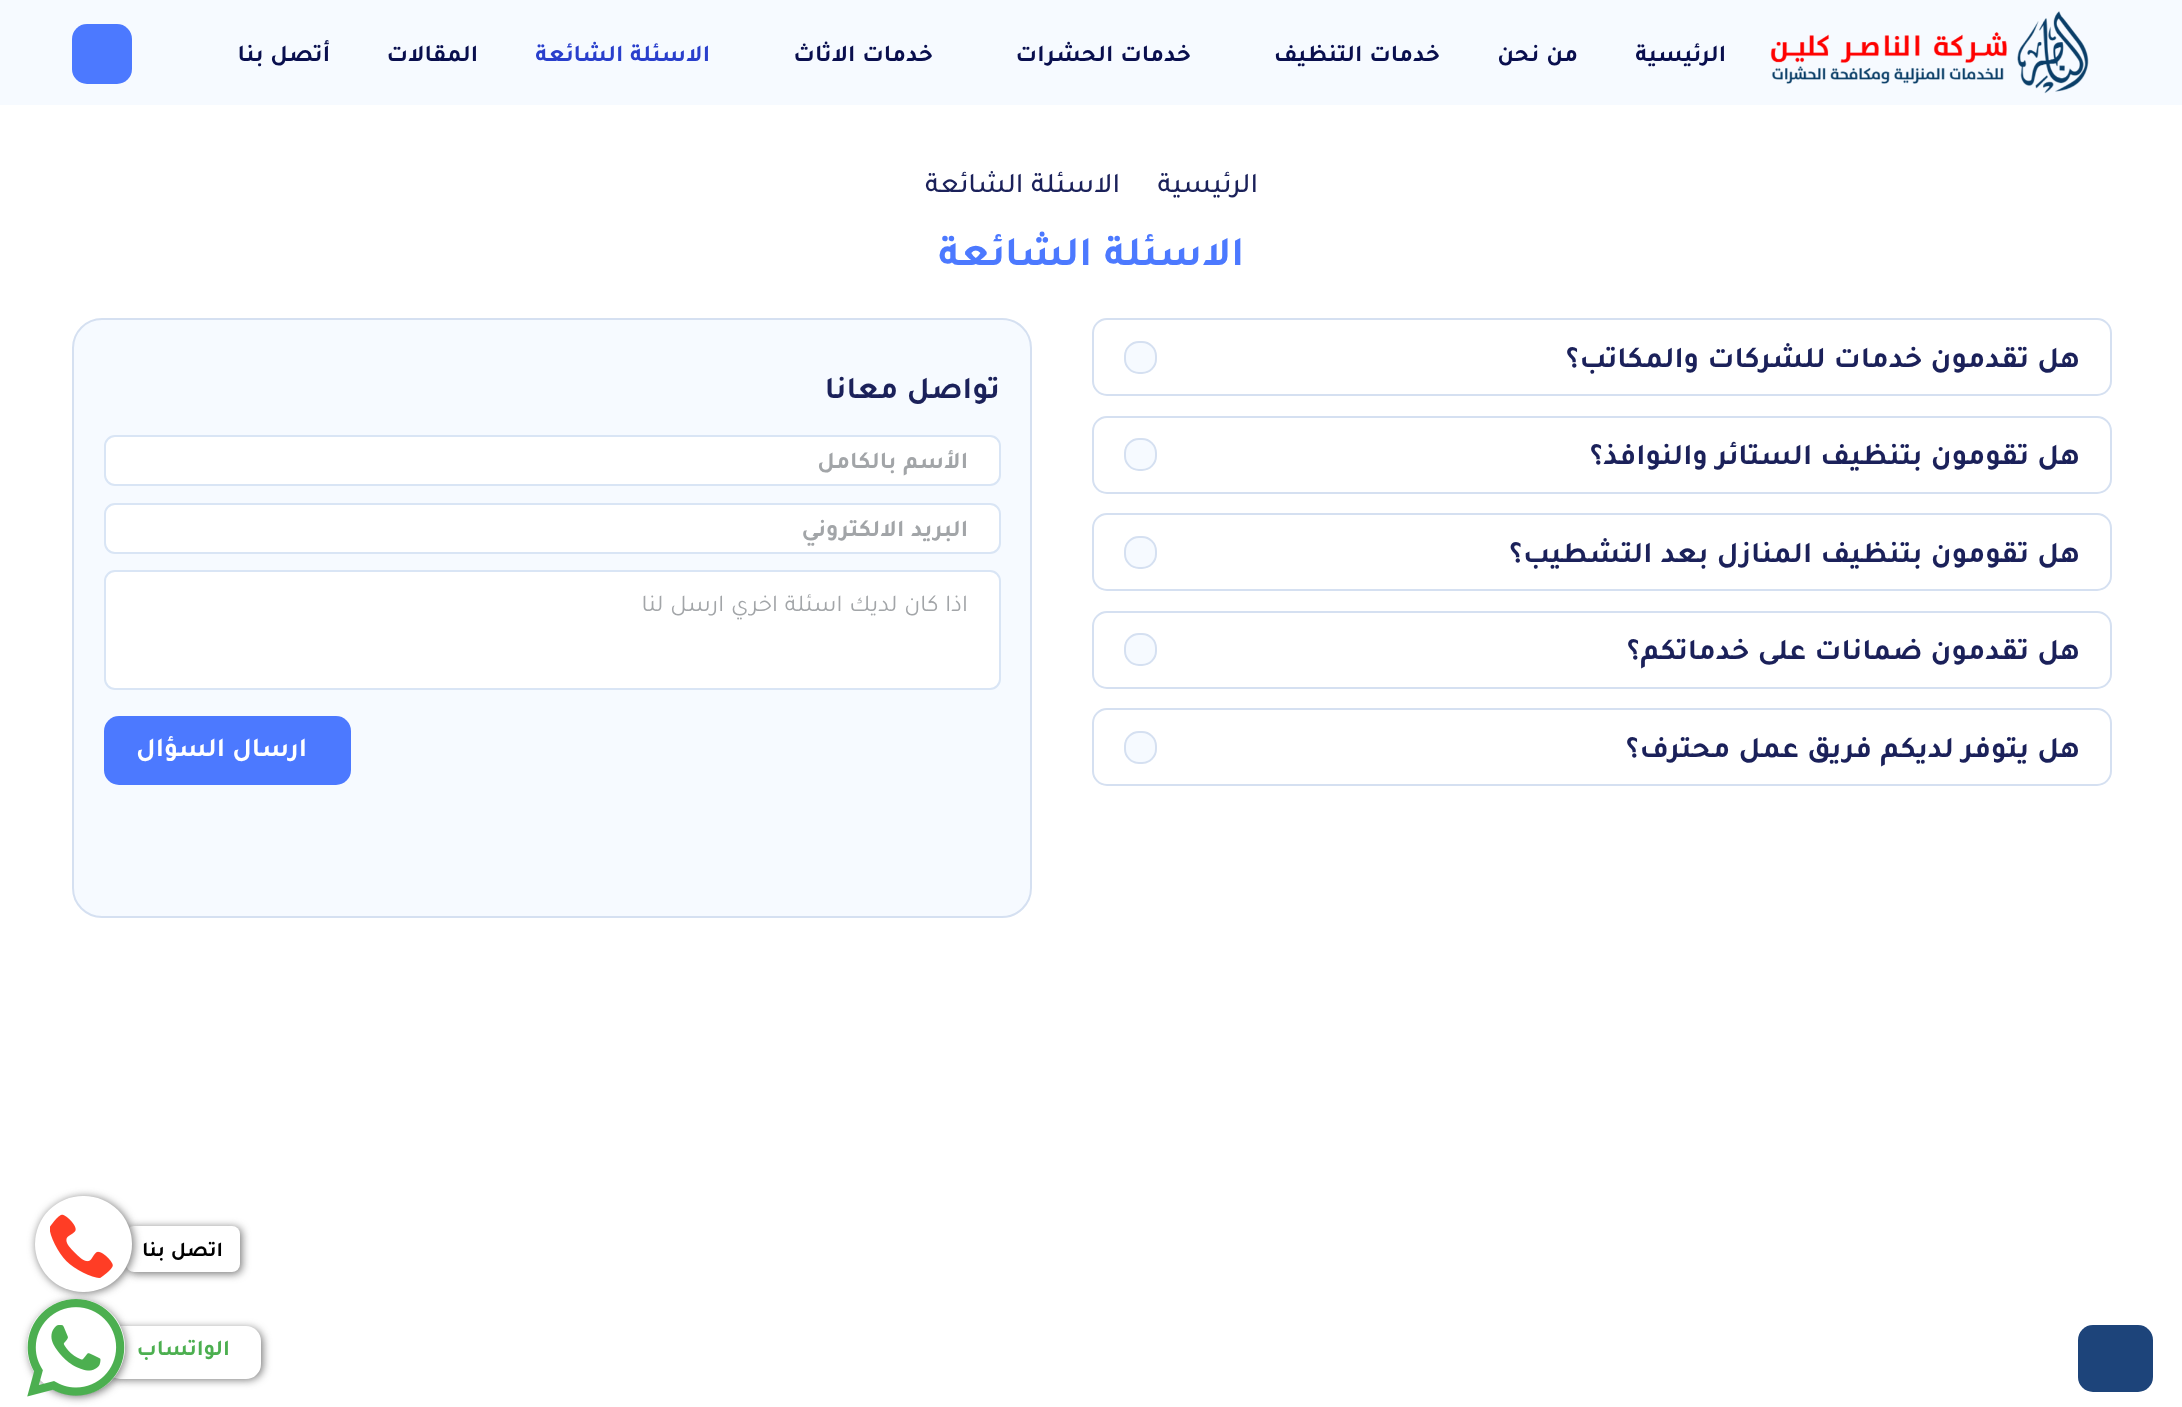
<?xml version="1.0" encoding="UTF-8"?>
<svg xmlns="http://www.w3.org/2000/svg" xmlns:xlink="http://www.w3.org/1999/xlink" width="2182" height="1407">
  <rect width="100%" height="100%" fill="#ffffff" />
  <rect width="2182" height="105" fill="#f6faff" />
  <image x="1770" y="11" width="319" height="83" xlink:href="image1.png" />
  <rect x="72" y="24" width="60" height="60" rx="15" fill="#4c79ff" />
  <rect x="1093" y="319" width="1018" height="76" rx="14" fill="none" stroke="#d5e0f1" stroke-width="2" />
  <rect x="1125" y="342" width="31" height="31" rx="14" fill="#f6faff" stroke="#d5e0f1" stroke-width="2" />
  <rect x="1093" y="417" width="1018" height="76" rx="14" fill="none" stroke="#d5e0f1" stroke-width="2" />
  <rect x="1125" y="439" width="31" height="31" rx="14" fill="#f6faff" stroke="#d5e0f1" stroke-width="2" />
  <rect x="1093" y="514" width="1018" height="76" rx="14" fill="none" stroke="#d5e0f1" stroke-width="2" />
  <rect x="1125" y="537" width="31" height="31" rx="14" fill="#f6faff" stroke="#d5e0f1" stroke-width="2" />
  <rect x="1093" y="612" width="1018" height="76" rx="14" fill="none" stroke="#d5e0f1" stroke-width="2" />
  <rect x="1125" y="634" width="31" height="31" rx="14" fill="#f6faff" stroke="#d5e0f1" stroke-width="2" />
  <rect x="1093" y="709" width="1018" height="76" rx="14" fill="none" stroke="#d5e0f1" stroke-width="2" />
  <rect x="1125" y="732" width="31" height="31" rx="14" fill="#f6faff" stroke="#d5e0f1" stroke-width="2" />
  <rect x="73" y="319" width="958" height="598" rx="29" fill="#f6faff" stroke="#d5e0f1" stroke-width="2" />
  <rect x="105" y="436" width="895" height="49" rx="10" fill="#ffffff" stroke="#d9e5f5" stroke-width="2" />
  <rect x="105" y="504" width="895" height="49" rx="10" fill="#ffffff" stroke="#d9e5f5" stroke-width="2" />
  <rect x="105" y="571" width="895" height="118" rx="10" fill="#ffffff" stroke="#d9e5f5" stroke-width="2" />
  <rect x="104" y="716" width="247" height="69" rx="15" fill="#4c79ff" />
  <rect x="2078" y="1325" width="75" height="67" rx="15" fill="#1d447a" />
  <rect x="128" y="1227" width="114" height="47" rx="8" fill="#444444" fill-opacity="0.71" filter="blur(4.5px)" />
  <rect x="126" y="1226" width="114" height="46" rx="8" fill="#ffffff" />
  <rect x="36" y="1197" width="98" height="96" rx="48" fill="#444444" fill-opacity="0.71" filter="blur(4.5px)" />
  <rect x="35" y="1196" width="97" height="96" rx="48" fill="#ffffff" />
  <image x="50" y="1214" width="63" height="64" xlink:href="image2.png" />
  <rect x="107" y="1328" width="156" height="52" rx="15" fill="#444444" fill-opacity="0.71" filter="blur(4.5px)" />
  <rect x="105" y="1326" width="156" height="53" rx="15" fill="#ffffff" />
  <rect x="29" y="1301" width="97" height="96" rx="48" fill="#444444" fill-opacity="0.71" filter="blur(4.5px)" />
  <rect x="27" y="1299" width="98" height="96" rx="48" fill="#ffffff" />
  <image x="27" y="1299" width="98" height="98" xlink:href="image3.png" />
  <text x="1726" y="61" style="font-family: Tajawal; font-size: 24px; font-weight: bold; direction: rtl; fill: #090f4e">الرئيسية</text>
  <text x="1578" y="61" word-spacing="1" style="font-family: Tajawal; font-size: 24px; font-weight: bold; direction: rtl; fill: #090f4e">من نحن</text>
  <text x="1440" y="61" word-spacing="1" style="font-family: Tajawal; font-size: 24px; font-weight: bold; direction: rtl; fill: #090f4e">خدمات التنظيف</text>
  <text x="1191" y="61" word-spacing="1" style="font-family: Tajawal; font-size: 24px; font-weight: bold; direction: rtl; fill: #090f4e">خدمات الحشرات</text>
  <text x="933" y="61" word-spacing="1" style="font-family: Tajawal; font-size: 24px; font-weight: bold; direction: rtl; fill: #090f4e">خدمات الاثاث</text>
  <text x="710" y="61" word-spacing="1" style="font-family: Tajawal; font-size: 24px; font-weight: bold; direction: rtl; fill: #293fcc">الاسئلة الشائعة</text>
  <text x="478" y="61" style="font-family: Tajawal; font-size: 24px; font-weight: bold; direction: rtl; fill: #090f4e">المقالات</text>
  <text x="330" y="61" word-spacing="1" style="font-family: Tajawal; font-size: 24px; font-weight: bold; direction: rtl; fill: #090f4e">أتصل بنا</text>
  <text x="1258" y="192" style="font-family: Tajawal; font-size: 28.5px; font-weight: 500; direction: rtl; fill: #1b215a">الرئيسية</text>
  <text x="1120" y="192" word-spacing="1" style="font-family: Tajawal; font-size: 28.5px; font-weight: 500; direction: rtl; fill: #1b215a">الاسئلة الشائعة</text>
  <text x="1244" y="265" word-spacing="2" style="font-family: Tajawal; font-size: 42px; font-weight: bold; direction: rtl; fill: #4c79ff">الاسئلة الشائعة</text>
  <text x="2080" y="367" word-spacing="1" style="font-family: Tajawal; font-size: 30px; font-weight: bold; direction: rtl; fill: #1b215a">هل تقدمون خدمات للشركات والمكاتب؟</text>
  <text x="2080" y="464" word-spacing="1" style="font-family: Tajawal; font-size: 30px; font-weight: bold; direction: rtl; fill: #1b215a">هل تقومون بتنظيف الستائر والنوافذ؟</text>
  <text x="2080" y="562" word-spacing="1" style="font-family: Tajawal; font-size: 30px; font-weight: bold; direction: rtl; fill: #1b215a">هل تقومون بتنظيف المنازل بعد التشطيب؟</text>
  <text x="2080" y="659" word-spacing="1" style="font-family: Tajawal; font-size: 30px; font-weight: bold; direction: rtl; fill: #1b215a">هل تقدمون ضمانات على خدماتكم؟</text>
  <text x="2080" y="757" word-spacing="1" style="font-family: Tajawal; font-size: 30px; font-weight: bold; direction: rtl; fill: #1b215a">هل يتوفر لديكم فريق عمل محترف؟</text>
  <text x="1000" y="398" word-spacing="1" style="font-family: Tajawal; font-size: 31.5px; font-weight: bold; direction: rtl; fill: #1b215a">تواصل معانا</text>
  <text x="968" y="468" word-spacing="1" style="font-family: Tajawal; font-size: 24px; font-weight: bold; direction: rtl; fill: #a2a5a8">الأسم بالكامل</text>
  <text x="968" y="536" word-spacing="1" style="font-family: Tajawal; font-size: 24px; font-weight: bold; direction: rtl; fill: #a2a5a8">البريد الالكتروني</text>
  <text x="968" y="611" word-spacing="1" style="font-family: Tajawal; font-size: 24px; direction: rtl; fill: #a2a5a8">اذا كان لديك اسئلة اخري ارسل لنا</text>
  <text x="307" y="756" style="font-family: Tajawal; font-size: 27px; font-weight: bold; direction: rtl; fill: #ffffff">ارسال</text>
  <text x="225" y="756" style="font-family: Tajawal; font-size: 27px; font-weight: bold; direction: rtl; fill: #ffffff">السؤال</text>
  <text x="223" y="1256" word-spacing="1" style="font-family: Tajawal; font-size: 21px; font-weight: bold; direction: rtl; fill: #000000">اتصل بنا</text>
  <text x="230" y="1355" style="font-family: Tajawal; font-size: 22.5px; font-weight: bold; direction: rtl; fill: #4caf50">الواتساب</text>
</svg>
